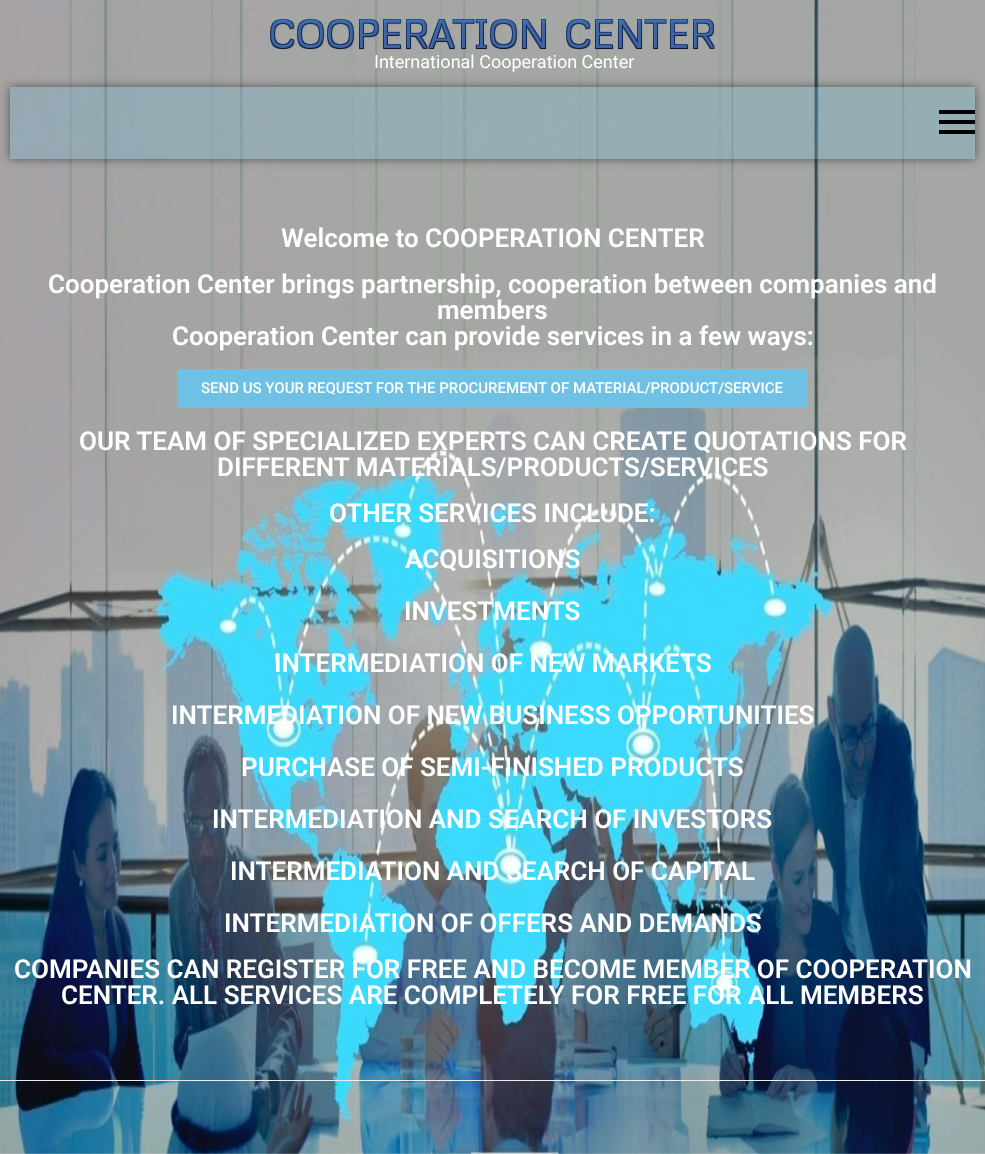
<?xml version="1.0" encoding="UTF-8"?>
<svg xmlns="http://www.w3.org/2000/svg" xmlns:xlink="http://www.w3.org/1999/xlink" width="985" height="1154">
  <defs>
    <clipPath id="clip1"><path d="M 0 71 h 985 v 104 h -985 z m 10 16 h 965 v 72 h -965 z" clip-rule="evenodd" /></clipPath>
  </defs>
  <rect width="100%" height="100%" fill="#ffffff" />
  <image x="0" y="0" width="985" height="1154" xlink:href="image1.png" />
  <image x="270" y="19" width="445" height="31" xlink:href="image2.png" />
  <g clip-path="url(#clip1)">
    <rect x="10" y="87" width="965" height="72" fill="#000000" fill-opacity="0.5" filter="blur(5px)" />
  </g>
  <rect x="10" y="87" width="965" height="72" fill="#6ec1e4" fill-opacity="0.26" />
  <path d="M 939 134 v -4 h 36 v 4 z m 0 -10 v -4 h 36 v 4 z m 0 -14 h 36 v 4 h -36 z" fill="#000000" />
  <rect x="177" y="369" width="631" height="39" rx="3" fill="#6ec1e4" />
  <rect y="1080" width="985" height="1" fill="#eeeeee" />
  <text x="374" y="68" style="font-family: Roboto; font-size: 18px; fill: #ffffff">International Cooperation Center</text>
  <text x="281" y="247" style="font-family: Roboto; font-size: 26px; font-weight: 600; fill: #ffffff">Welcome to COOPERATION CENTER</text>
  <text x="48" y="293" style="font-family: Roboto; font-size: 26px; font-weight: 600; fill: #ffffff">Cooperation Center brings partnership, cooperation between companies and</text>
  <text x="437" y="319" style="font-family: Roboto; font-size: 26px; font-weight: 600; fill: #ffffff">members</text>
  <text x="172" y="345" style="font-family: Roboto; font-size: 26px; font-weight: 600; fill: #ffffff">Cooperation Center can provide services in a few ways:</text>
  <text x="201" y="393" style="font-family: Roboto; font-size: 15px; font-weight: 500; fill: #ffffff">SEND US YOUR REQUEST FOR THE PROCUREMENT OF MATERIAL/PRODUCT/SERVICE</text>
  <text x="79" y="450" style="font-family: Roboto; font-size: 26px; font-weight: 600; fill: #ffffff">OUR TEAM OF SPECIALIZED EXPERTS CAN CREATE QUOTATIONS FOR</text>
  <text x="217" y="476" style="font-family: Roboto; font-size: 26px; font-weight: 600; fill: #ffffff">DIFFERENT MATERIALS/PRODUCTS/SERVICES</text>
  <text x="329" y="522" style="font-family: Roboto; font-size: 26px; font-weight: 600; fill: #ffffff">OTHER SERVICES INCLUDE:</text>
  <text x="405" y="568" style="font-family: Roboto; font-size: 26px; font-weight: 600; fill: #ffffff">ACQUISITIONS</text>
  <text x="404" y="620" style="font-family: Roboto; font-size: 26px; font-weight: 600; fill: #ffffff">INVESTMENTS</text>
  <text x="274" y="672" style="font-family: Roboto; font-size: 26px; font-weight: 600; fill: #ffffff">INTERMEDIATION OF NEW MARKETS</text>
  <text x="171" y="724" style="font-family: Roboto; font-size: 26px; font-weight: 600; fill: #ffffff">INTERMEDIATION OF NEW BUSINESS OPPORTUNITIES</text>
  <text x="241" y="776" style="font-family: Roboto; font-size: 26px; font-weight: 600; fill: #ffffff">PURCHASE OF SEMI-FINISHED PRODUCTS</text>
  <text x="212" y="828" style="font-family: Roboto; font-size: 26px; font-weight: 600; fill: #ffffff">INTERMEDIATION AND SEARCH OF INVESTORS</text>
  <text x="230" y="880" style="font-family: Roboto; font-size: 26px; font-weight: 600; fill: #ffffff">INTERMEDIATION AND SEARCH OF CAPITAL</text>
  <text x="224" y="932" style="font-family: Roboto; font-size: 26px; font-weight: 600; fill: #ffffff">INTERMEDIATION OF OFFERS AND DEMANDS</text>
  <text x="14" y="978" style="font-family: Roboto; font-size: 26px; font-weight: 600; fill: #ffffff">COMPANIES CAN REGISTER FOR FREE AND BECOME MEMBER OF COOPERATION</text>
  <text x="61" y="1004" style="font-family: Roboto; font-size: 26px; font-weight: 600; fill: #ffffff">CENTER. ALL SERVICES ARE COMPLETELY FOR FREE FOR ALL MEMBERS</text>
</svg>
